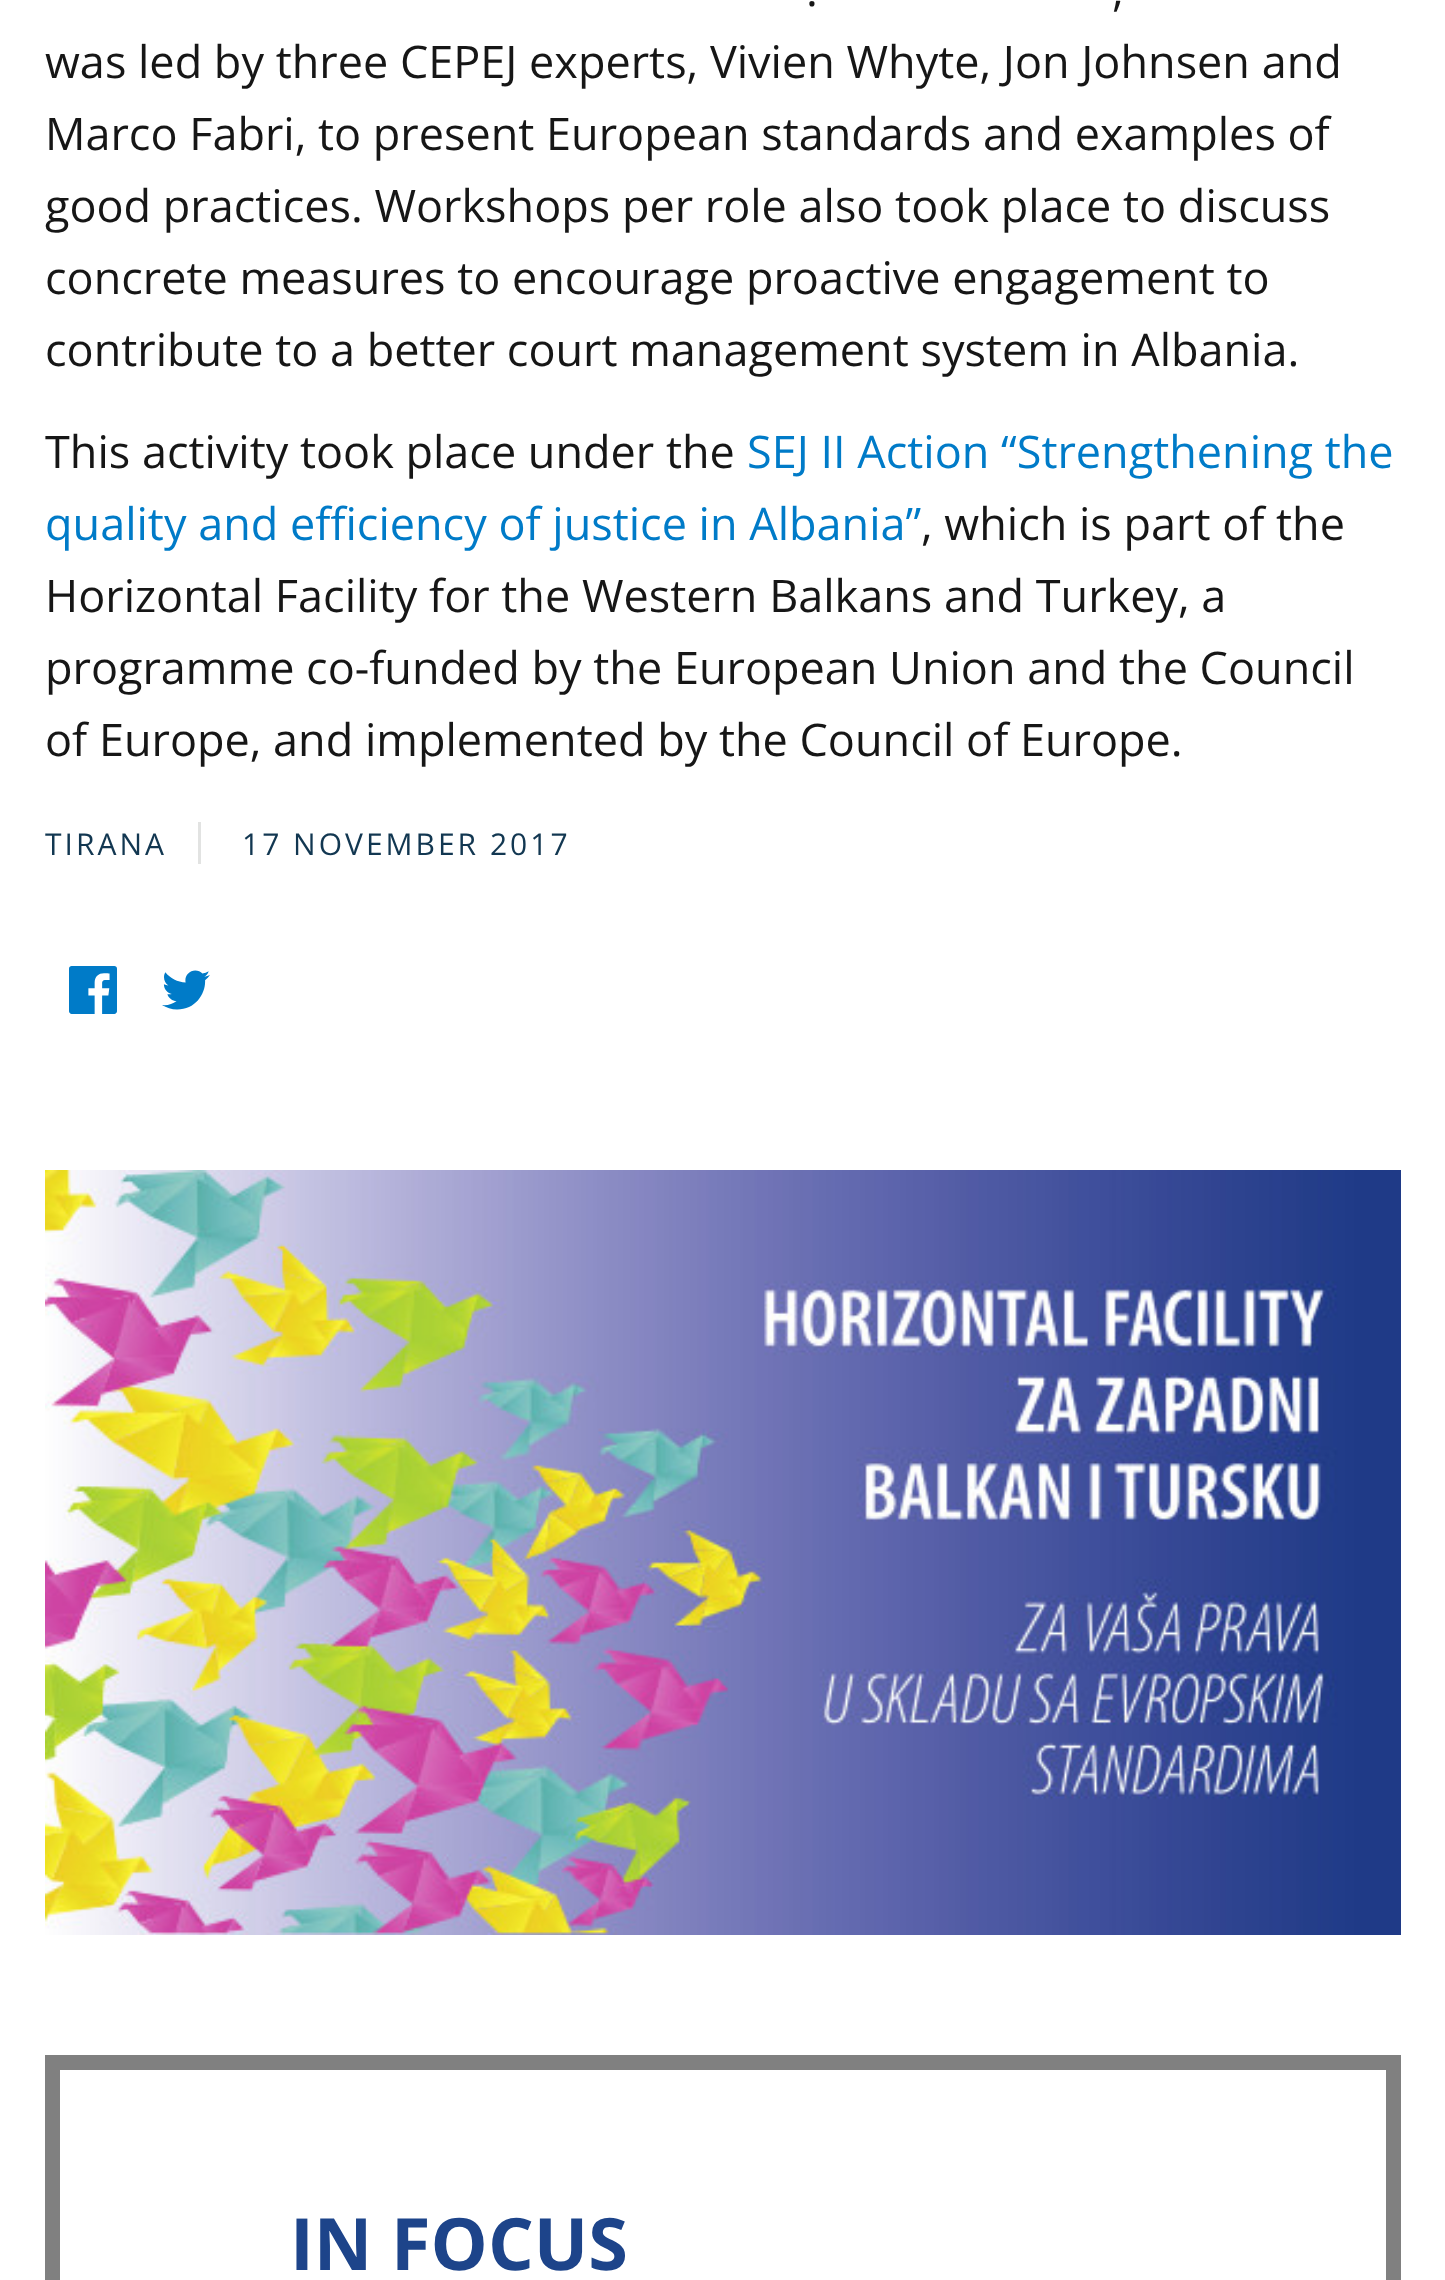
<?xml version="1.0" encoding="UTF-8"?>
<svg xmlns="http://www.w3.org/2000/svg" xmlns:xlink="http://www.w3.org/1999/xlink" width="1445" height="2280">
  <rect width="100%" height="100%" fill="#ffffff" />
  <rect x="198" y="822" width="3" height="42" fill="#e2e3e2" />
  <image x="69" y="966" width="48" height="48" xlink:href="image1.png" />
  <image x="162" y="970" width="48" height="40" xlink:href="image2.png" />
  <image x="45" y="1170" width="1356" height="765" xlink:href="image3.png" />
  <rect x="60" y="2055" width="1326" height="15" fill="#808080" />
  <rect x="1386" y="2055" width="15" height="225" fill="#808080" />
  <rect x="45" y="2055" width="15" height="225" fill="#808080" />
  <text x="806" y="6" style="font-family: Open Sans; font-size: 45px; fill: #161616">.</text>
  <text x="1112" y="6" style="font-family: Open Sans; font-size: 45px; fill: #161616">,</text>
  <text x="45" y="78" style="font-family: Open Sans; font-size: 45px; fill: #161616">was led by three CEPEJ experts, Vivien Whyte, Jon Johnsen and</text>
  <text x="45" y="150" style="font-family: Open Sans; font-size: 45px; fill: #161616">Marco Fabri, to present European standards and examples of</text>
  <text x="45" y="222" style="font-family: Open Sans; font-size: 45px; fill: #161616">good practices. Workshops per role also took place to discuss</text>
  <text x="45" y="294" style="font-family: Open Sans; font-size: 45px; fill: #161616">concrete measures to encourage proactive engagement to</text>
  <text x="45" y="366" style="font-family: Open Sans; font-size: 45px; fill: #161616">contribute to a better court management system in Albania.</text>
  <text x="45" y="468" style="font-family: Open Sans; font-size: 45px; fill: #161616">This activity took place under the</text>
  <text x="747" y="468" style="font-family: Open Sans; font-size: 45px; fill: #007bc8">SEJ II Action “Strengthening the</text>
  <text x="45" y="540" style="font-family: Open Sans; font-size: 45px; fill: #007bc8">quality and efficiency of justice in Albania”</text>
  <text x="921" y="540" style="font-family: Open Sans; font-size: 45px; fill: #161616">, which is part of the</text>
  <text x="45" y="612" style="font-family: Open Sans; font-size: 45px; fill: #161616">Horizontal Facility for the Western Balkans and Turkey, a</text>
  <text x="45" y="684" style="font-family: Open Sans; font-size: 45px; fill: #161616">programme co-funded by the European Union and the Council</text>
  <text x="45" y="756" style="font-family: Open Sans; font-size: 45px; fill: #161616">of Europe, and implemented by the Council of Europe.</text>
  <text x="45" y="855" style="font-family: Open Sans; font-size: 30px; letter-spacing: 3px; fill: #123751">TIRANA</text>
  <text x="242" y="855" style="font-family: Open Sans; font-size: 30px; letter-spacing: 3px; fill: #123751">17 NOVEMBER 2017</text>
  <text x="290" y="2270" style="font-family: Open Sans; font-size: 72px; font-weight: bold; fill: #1d448a">IN FOCUS</text>
</svg>
